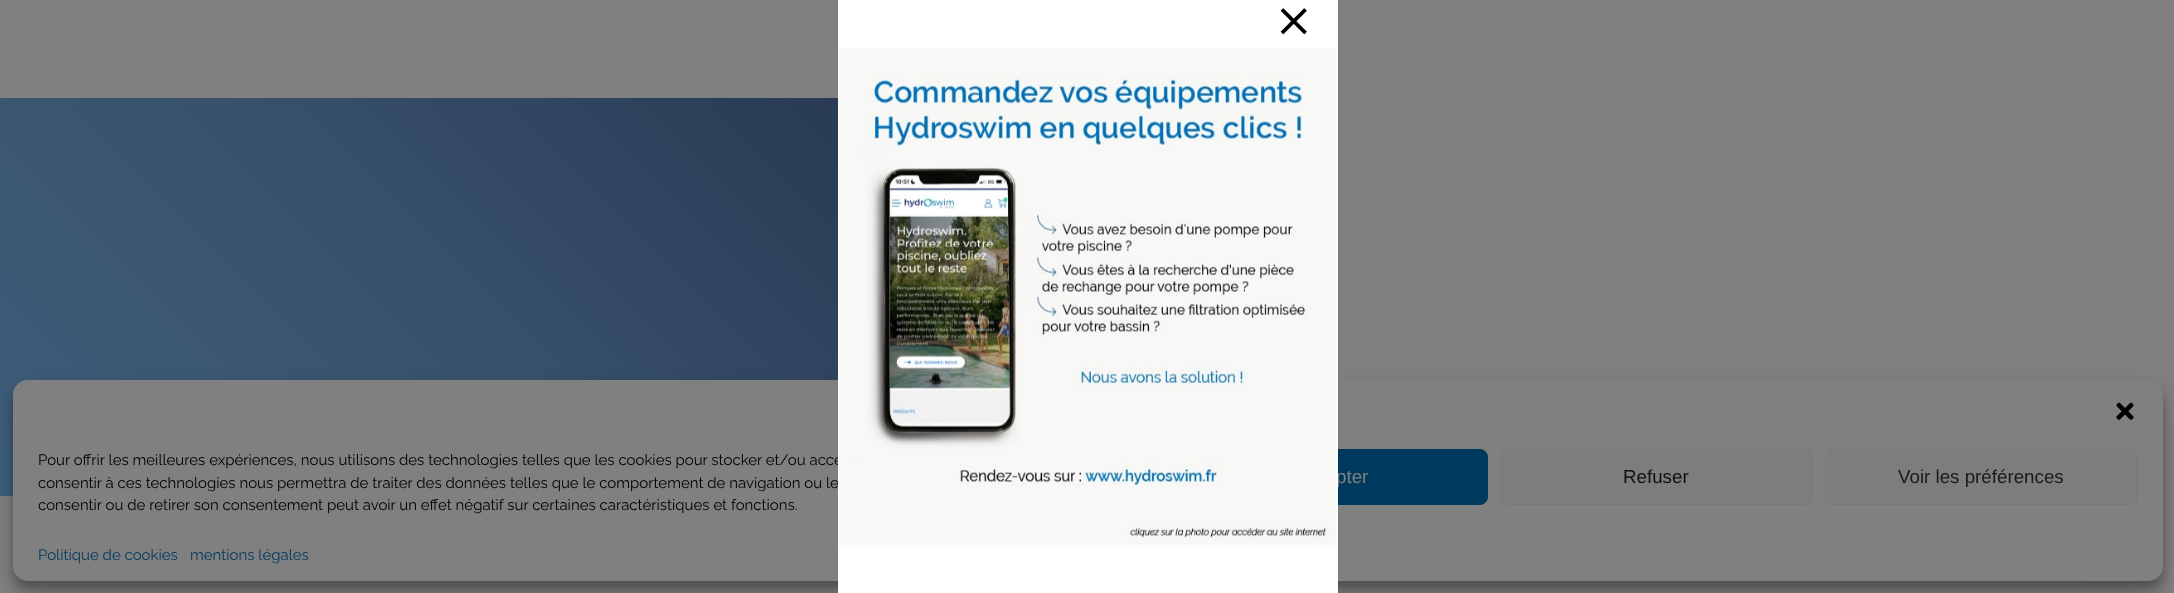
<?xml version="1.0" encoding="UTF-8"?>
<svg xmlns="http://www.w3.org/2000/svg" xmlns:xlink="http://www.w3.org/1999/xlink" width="2174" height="593">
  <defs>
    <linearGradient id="g1" gradientUnits="userSpaceOnUse" x1="201" y1="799" x2="1104" y2="-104"><stop offset="0" stop-color="#3f617d" /><stop offset="0.42" stop-color="#38506a" /><stop offset="1" stop-color="#1c2943" /></linearGradient>
  </defs>
  <rect width="100%" height="100%" fill="#808080" />
  <rect y="98" width="838" height="398" fill="url(#g1)" />
  <rect x="2088" y="501" width="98" height="75" rx="2.5" fill="#404040" filter="blur(3px)" />
  <rect x="2083" y="496" width="91" height="85" fill="#808080" />
  <rect x="13" y="388" width="2150" height="201" rx="15" fill="#000000" fill-opacity="0.23" filter="blur(4px)" />
  <rect x="13" y="393" width="2150" height="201" rx="15" fill="#000000" fill-opacity="0.19" filter="blur(12.5px)" />
  <rect x="13" y="380" width="2150" height="201" rx="15" fill="#808080" />
  <image x="2116" y="402" width="18" height="18" xlink:href="image3.png" />
  <rect x="1175.5" y="449.5" width="312" height="55" rx="7.5" fill="#00395e" stroke="#00395e" />
  <rect x="1500.5" y="449.5" width="312" height="55" rx="7.5" fill="#7d7d7d" stroke="#797979" />
  <rect x="1825.5" y="449.5" width="312" height="55" rx="7.5" fill="#7d7d7d" stroke="#797979" />
  <text x="38" y="465" style="font-family: Raleway; font-size: 15px; fill: #000000">Pour offrir les meilleures expériences, nous utilisons des technologies telles que les cookies pour stocker et/ou accé</text>
  <text x="38" y="488" style="font-family: Raleway; font-size: 15px; fill: #000000">consentir à ces technologies nous permettra de traiter des données telles que le comportement de navigation ou le</text>
  <text x="38" y="510" style="font-family: Raleway; font-size: 15px; fill: #000000">consentir ou de retirer son consentement peut avoir un effet négatif sur certaines caractéristiques et fonctions.</text>
  <text x="1336" y="483" style="font-family: Liberation Sans; font-size: 18.75px; fill: #808080">pter</text>
  <rect x="838" width="500" height="593" fill="#ffffff" />
  <image x="1280" y="8" width="27" height="27" xlink:href="image1.png" />
  <image x="839" y="48" width="497" height="497" xlink:href="image2.png" />
  <text x="1623" y="483" style="font-family: Liberation Sans; font-size: 18.75px; fill: #111111">Refuser</text>
  <text x="1898" y="483" style="font-family: Liberation Sans; font-size: 18.75px; fill: #1a1a1a">Voir les préférences</text>
  <text x="38" y="560" style="font-family: Raleway; font-size: 15px; fill: #00395e">Politique de cookies</text>
  <text x="190" y="560" style="font-family: Raleway; font-size: 15px; fill: #00395e">mentions légales</text>
</svg>
